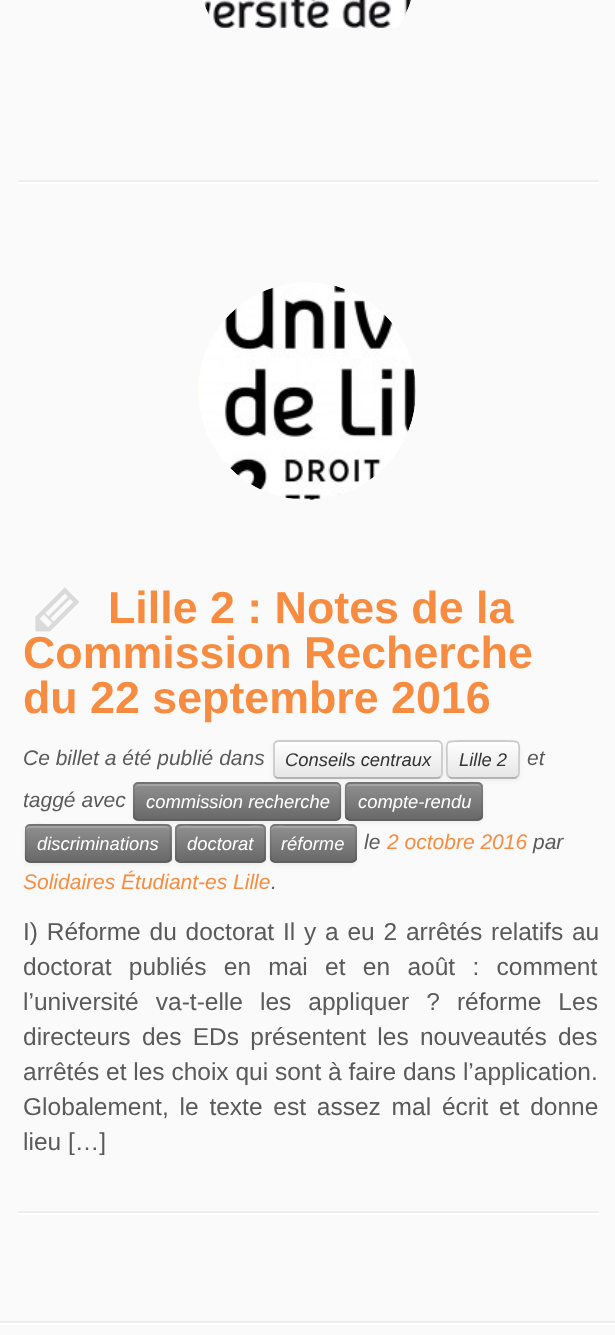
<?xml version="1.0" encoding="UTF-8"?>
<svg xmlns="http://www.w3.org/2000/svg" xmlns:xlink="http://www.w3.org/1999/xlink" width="615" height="1335">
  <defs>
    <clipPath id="clip1"><rect x="133" width="350" height="128" /></clipPath>
    <clipPath id="clip2"><rect x="273" y="740" width="170" height="39" rx="5" /></clipPath>
    <linearGradient id="g1" gradientUnits="userSpaceOnUse" x1="358" y1="742" x2="358" y2="777"><stop offset="0" stop-color="#ffffff" /><stop offset="1" stop-color="#e6e6e6" /></linearGradient>
    <clipPath id="clip3"><rect x="446" y="740" width="74" height="39" rx="5" /></clipPath>
    <linearGradient id="g2" gradientUnits="userSpaceOnUse" x1="483" y1="742" x2="483" y2="777"><stop offset="0" stop-color="#ffffff" /><stop offset="1" stop-color="#e6e6e6" /></linearGradient>
    <clipPath id="clip4"><rect x="133" y="782" width="208" height="39" rx="5" /></clipPath>
    <linearGradient id="g3" gradientUnits="userSpaceOnUse" x1="237" y1="784" x2="237" y2="819"><stop offset="0" stop-color="#8f8f8f" /><stop offset="1" stop-color="#696969" /></linearGradient>
    <clipPath id="clip5"><rect x="345" y="782" width="138" height="39" rx="5" /></clipPath>
    <linearGradient id="g4" gradientUnits="userSpaceOnUse" x1="414" y1="784" x2="414" y2="819"><stop offset="0" stop-color="#8f8f8f" /><stop offset="1" stop-color="#696969" /></linearGradient>
    <clipPath id="clip6"><rect x="25" y="824" width="147" height="39" rx="5" /></clipPath>
    <linearGradient id="g5" gradientUnits="userSpaceOnUse" x1="98" y1="826" x2="98" y2="861"><stop offset="0" stop-color="#8f8f8f" /><stop offset="1" stop-color="#696969" /></linearGradient>
    <clipPath id="clip7"><rect x="175" y="824" width="91" height="39" rx="5" /></clipPath>
    <linearGradient id="g6" gradientUnits="userSpaceOnUse" x1="221" y1="826" x2="221" y2="861"><stop offset="0" stop-color="#8f8f8f" /><stop offset="1" stop-color="#696969" /></linearGradient>
    <clipPath id="clip8"><rect x="270" y="824" width="87" height="39" rx="5" /></clipPath>
    <linearGradient id="g7" gradientUnits="userSpaceOnUse" x1="313" y1="826" x2="313" y2="861"><stop offset="0" stop-color="#8f8f8f" /><stop offset="1" stop-color="#696969" /></linearGradient>
    <clipPath id="clip9"><rect x="133" y="236" width="350" height="315" /></clipPath>
  </defs>
  <rect width="100%" height="100%" fill="#fafafa" />
  <image x="202" y="0" width="210" height="28" xlink:href="image1.png" />
  <rect x="18" y="180" width="581" height="2" fill="#eeeeee" />
  <rect x="18" y="182" width="581" height="2" fill="#ffffff" />
  <g clip-path="url(#clip1)">
    <circle cx="307" cy="-32" r="191.5" fill="none" stroke="#fafafa" stroke-width="165" />
    <circle cx="307" cy="-32" r="191.5" fill="none" stroke="#fafafa" stroke-width="165" />
  </g>
  <image x="198" y="282" width="218" height="218" xlink:href="image2.png" />
  <image x="35" y="587" width="44" height="45" xlink:href="image3.png" />
  <rect x="273" y="742" width="170" height="39" rx="5" fill="#000000" fill-opacity="0.05" filter="blur(2px)" />
  <rect x="273" y="740" width="170" height="39" rx="5" fill="#f5f5f5" />
  <g clip-path="url(#clip2)">
    <rect x="273" y="742" width="170" height="35" fill="url(#g1)" />
  </g>
  <path d="M 440.5 776.5 c -0.5 1 -2 1.5 -3 1.5 h -159.5 c -1 0 -2 -0.5 -3 -1.5" fill="none" stroke="#b3b3b3" stroke-width="1.8" />
  <path d="M 275 776.5 c -0.5 -0.5 -1 -2 -1 -3 v -28 c 0 -1 0.5 -2.5 1 -3 c 1 -1 2 -1.5 3 -1.5 h 159.5 c 1 0 2.5 0.5 3 1.5 c 1 0.5 1.5 2 1.5 3 v 28 c 0 1 -0.5 2.5 -1.5 3" fill="none" stroke="#cccccc" stroke-width="1.8" />
  <rect x="446" y="742" width="74" height="39" rx="5" fill="#000000" fill-opacity="0.05" filter="blur(2px)" />
  <rect x="446" y="740" width="74" height="39" rx="5" fill="#f5f5f5" />
  <g clip-path="url(#clip3)">
    <rect x="446" y="742" width="74" height="35" fill="url(#g2)" />
  </g>
  <path d="M 452 744 h 62 c 2 0 4 1 4 3 c 0 -7 -9 -5 -14 -5 h -42 c -5 0 -14 -2 -14 5 c 0 -2 2 -3 4 -3 z" fill="#ffffff" />
  <path d="M 517.5 776.5 l -2.5 1.5 h -64 l -2.5 -1.5" fill="none" stroke="#b3b3b3" stroke-width="1.8" />
  <path d="M 448.5 776.5 c -2 -2 -1.5 -5.5 -1.5 -7.5 v -9.5 c 0 -19 -3.5 -18.5 15 -18.5 h 42 c 18.5 0 15 -0.5 15 18.5 v 9.5 c 0 2 0.5 5.5 -1.5 7.5" fill="none" stroke="#cccccc" stroke-width="1.8" />
  <rect x="133" y="784" width="208" height="39" rx="5" fill="#000000" fill-opacity="0.05" filter="blur(2px)" />
  <rect x="133" y="782" width="208" height="39" rx="5" fill="#808080" />
  <g clip-path="url(#clip4)">
    <rect x="133" y="784" width="208" height="35" fill="url(#g3)" />
  </g>
  <path d="M 138 786 h 198 c 2 0 4 1 4 3 v -1 c 0 -2 -2 -4 -4 -4 h -197 c -2 0 -4 2 -4 4 v 1 c 0 -2 1 -3 3 -3 z" fill="#a4a4a4" />
  <path d="M 339 818.5 c -0.5 1 -2 1.5 -3 1.5 h -198 c -1 0 -2 -0.5 -3 -1.5" fill="none" stroke="#000000" stroke-opacity="0.25" stroke-width="1.8" />
  <path d="M 135 818.5 c -0.5 -0.5 -1 -2 -1 -3 v -28 c 0 -1 0.5 -2.5 1 -3 c 1 -1 2 -1.5 3 -1.5 h 198 c 1 0 2.5 0.5 3 1.5 c 1 0.5 1.5 2 1.5 3 v 28 c 0 1 -0.5 2.5 -1.5 3" fill="none" stroke="#000000" stroke-opacity="0.1" stroke-width="1.8" />
  <rect x="345" y="784" width="138" height="39" rx="5" fill="#000000" fill-opacity="0.05" filter="blur(2px)" />
  <rect x="345" y="782" width="138" height="39" rx="5" fill="#808080" />
  <g clip-path="url(#clip5)">
    <rect x="345" y="784" width="138" height="35" fill="url(#g4)" />
  </g>
  <path d="M 350 786 h 128 c 2 0 3 1 3 3 v -1 c 0 -2 -2 -4 -4 -4 h -126 c -2 0 -3 1 -4 3 z" fill="#a4a4a4" />
  <path d="M 481 818.5 l -3 1.5 h -128.5 l -2.5 -1.5" fill="none" stroke="#000000" stroke-opacity="0.25" stroke-width="1.8" />
  <path d="M 347 818.5 c -3 -2.5 -1.5 -9.5 -1.5 -12.5 c 0 -28 -4.5 -23 26 -23 h 85 c 30 0 25.5 -5 25.5 23 c 0 3 1.5 10 -1 12.5" fill="none" stroke="#000000" stroke-opacity="0.1" stroke-width="1.8" />
  <rect x="25" y="826" width="147" height="39" rx="5" fill="#000000" fill-opacity="0.05" filter="blur(2px)" />
  <rect x="25" y="824" width="147" height="39" rx="5" fill="#808080" />
  <g clip-path="url(#clip6)">
    <rect x="25" y="826" width="147" height="35" fill="url(#g5)" />
  </g>
  <path d="M 30 828 h 136 c 2 0 4 1 4 3 v -1 c 0 -2 -2 -4 -4 -4 h -136 c -2 0 -4 2 -4 4 v 1 c 0 -2 2 -3 4 -3 z" fill="#a4a4a4" />
  <path d="M 169.5 860.5 l -3.5 1.5 h -136.5 l -3 -1.5" fill="none" stroke="#000000" stroke-opacity="0.25" stroke-width="1.8" />
  <path d="M 26.5 860.5 c -2.5 -2.5 -1 -9.5 -1 -12.5 c 0 -28.5 -4.5 -23 27 -23 h 91 c 31.5 0 27 -5.5 27 23 c 0 3 1.5 10 -1 12.5" fill="none" stroke="#000000" stroke-opacity="0.1" stroke-width="1.8" />
  <rect x="175" y="826" width="91" height="39" rx="5" fill="#000000" fill-opacity="0.05" filter="blur(2px)" />
  <rect x="175" y="824" width="91" height="39" rx="5" fill="#808080" />
  <g clip-path="url(#clip7)">
    <rect x="175" y="826" width="91" height="35" fill="url(#g6)" />
  </g>
  <path d="M 180 828 h 81 c 2 0 3 1 3 3 c 0 -8 -12 -5 -17 -5 h -53 c -5 0 -17 -3 -17 5 c 0 -2 1 -3 3 -3 z" fill="#ffffff" fill-opacity="0.2" />
  <path d="M 264 860.5 l -3 1.5 h -81 l -3 -1.5" fill="none" stroke="#000000" stroke-opacity="0.25" stroke-width="1.8" />
  <path d="M 177 860.5 c -2 -2 -1 -5.5 -1 -7.5 v -9.5 c 0 -20.5 -3.5 -18.5 17.5 -18.5 h 54 c 21 0 17.5 -2 17.5 18.5 v 9.5 c 0 2 1 5.5 -1 7.5" fill="none" stroke="#000000" stroke-opacity="0.1" stroke-width="1.8" />
  <rect x="270" y="826" width="87" height="39" rx="5" fill="#000000" fill-opacity="0.05" filter="blur(2px)" />
  <rect x="270" y="824" width="87" height="39" rx="5" fill="#808080" />
  <g clip-path="url(#clip8)">
    <rect x="270" y="826" width="87" height="35" fill="url(#g7)" />
  </g>
  <path d="M 275 828 h 77 c 2 0 3 1 3 3 c 0 -8 -12 -5 -17 -5 h -50 c -5 0 -17 -3 -17 5 c 0 -2 2 -3 4 -3 z" fill="#ffffff" fill-opacity="0.2" />
  <path d="M 355 860.5 l -3 1.5 h -77.5 l -3 -1.5" fill="none" stroke="#000000" stroke-opacity="0.25" stroke-width="1.8" />
  <path d="M 271.5 860.5 c -2 -2 -1 -5.5 -1 -7.5 v -9.5 c 0 -20.5 -3.5 -18.5 17 -18.5 h 51.5 c 20.5 0 17 -2 17 18.5 v 9.5 c 0 2 1 5.5 -1 7.5" fill="none" stroke="#000000" stroke-opacity="0.1" stroke-width="1.8" />
  <rect x="18" y="1211" width="581" height="2" fill="#eeeeee" />
  <rect x="18" y="1213" width="581" height="2" fill="#ffffff" />
  <rect y="1321" width="615" height="2" fill="#eeeeee" />
  <rect y="1323" width="615" height="2" fill="#ffffff" />
  <text x="108" y="623" style="font-family: Liberation Sans; font-size: 44.75px; font-weight: bold; fill: #f78c40">Lille 2 : Notes de la</text>
  <text x="23" y="668" style="font-family: Liberation Sans; font-size: 44.75px; font-weight: bold; fill: #f78c40">Commission Recherche</text>
  <g clip-path="url(#clip9)">
    <circle cx="307" cy="391" r="191.5" fill="none" stroke="#fafafa" stroke-width="165" />
    <circle cx="307" cy="391" r="191.5" fill="none" stroke="#fafafa" stroke-width="165" />
  </g>
  <text x="23" y="713" style="font-family: Liberation Sans; font-size: 44.75px; font-weight: bold; fill: #f78c40">du 22 septembre 2016</text>
  <text x="23" y="765" style="font-family: Liberation Sans; font-size: 21px; font-style: italic; fill: #5a5a5a">Ce billet a été publié dans</text>
  <text x="285" y="766" style="font-family: Liberation Sans; font-size: 18.4px; font-style: italic; fill: #333333">Conseils centraux</text>
  <text x="459" y="766" style="font-family: Liberation Sans; font-size: 18.4px; font-style: italic; fill: #333333">Lille 2</text>
  <text x="527" y="765" style="font-family: Liberation Sans; font-size: 21px; font-style: italic; fill: #5a5a5a">et</text>
  <text x="23" y="807" style="font-family: Liberation Sans; font-size: 21px; font-style: italic; fill: #5a5a5a">taggé avec</text>
  <text x="146" y="808" style="font-family: Liberation Sans; font-size: 18.4px; font-style: italic; fill: #ffffff">commission recherche</text>
  <text x="358" y="808" style="font-family: Liberation Sans; font-size: 18.4px; font-style: italic; fill: #ffffff">compte-rendu</text>
  <text x="37" y="850" style="font-family: Liberation Sans; font-size: 18.4px; font-style: italic; fill: #ffffff">discriminations</text>
  <text x="187" y="850" style="font-family: Liberation Sans; font-size: 18.4px; font-style: italic; fill: #ffffff">doctorat</text>
  <text x="281" y="850" style="font-family: Liberation Sans; font-size: 18.4px; font-style: italic; fill: #ffffff">réforme</text>
  <text x="364" y="849" style="font-family: Liberation Sans; font-size: 21px; font-style: italic; fill: #5a5a5a">le</text>
  <text x="387" y="849" style="font-family: Liberation Sans; font-size: 21px; font-style: italic; fill: #f78c40">2 octobre 2016</text>
  <text x="533" y="849" style="font-family: Liberation Sans; font-size: 21px; font-style: italic; fill: #5a5a5a">par</text>
  <text x="23" y="889" style="font-family: Liberation Sans; font-size: 21px; font-style: italic; fill: #f78c40">Solidaires Étudiant-es Lille</text>
  <text x="271" y="889" style="font-family: Liberation Sans; font-size: 21px; font-style: italic; fill: #5a5a5a">.</text>
  <text x="23" y="940" word-spacing="2" style="font-family: Liberation Sans; font-size: 24.5px; fill: #5a5a5a">I) Réforme du doctorat Il y a eu 2 arrêtés relatifs au</text>
  <text x="23" y="975" word-spacing="10.5" style="font-family: Liberation Sans; font-size: 24.5px; fill: #5a5a5a">doctorat publiés en mai et en août : comment</text>
  <text x="23" y="1010" word-spacing="10.25" style="font-family: Liberation Sans; font-size: 24.5px; fill: #5a5a5a">l’université va-t-elle les appliquer ? réforme Les</text>
  <text x="23" y="1045" word-spacing="4.5" style="font-family: Liberation Sans; font-size: 24.5px; fill: #5a5a5a">directeurs des EDs présentent les nouveautés des</text>
  <text x="23" y="1080" style="font-family: Liberation Sans; font-size: 24.5px; fill: #5a5a5a">arrêtés et les choix qui sont à faire dans l’application.</text>
  <text x="23" y="1115" word-spacing="4" style="font-family: Liberation Sans; font-size: 24.5px; fill: #5a5a5a">Globalement, le texte est assez mal écrit et donne</text>
  <text x="23" y="1150" style="font-family: Liberation Sans; font-size: 24.5px; fill: #5a5a5a">lieu […]</text>
</svg>
